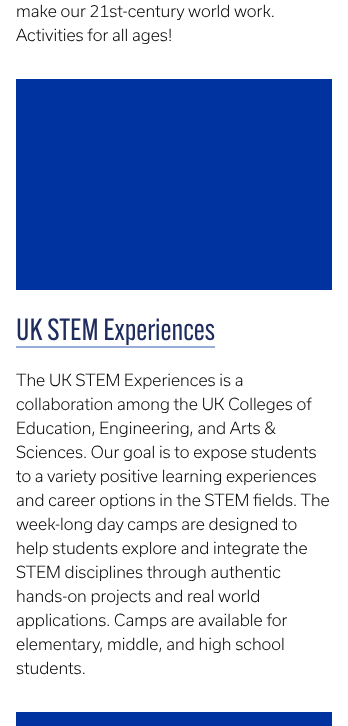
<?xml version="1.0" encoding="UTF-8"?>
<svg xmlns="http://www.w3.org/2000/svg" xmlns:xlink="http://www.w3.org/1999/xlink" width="348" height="726">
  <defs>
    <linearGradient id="g1" gradientUnits="userSpaceOnUse" x1="116" y1="348" x2="116" y2="317"><stop offset="0" stop-color="#99add9" /><stop offset="0.06" stop-color="#99add9" /><stop offset="0.06" stop-color="#ffffff" /><stop offset="1" stop-color="#ffffff" /></linearGradient>
  </defs>
  <rect width="100%" height="100%" fill="#ffffff" />
  <rect x="16" y="79" width="316" height="211" fill="#0033a0" />
  <rect x="16" y="346" width="199" height="2" fill="url(#g1)" />
  <rect x="16" y="712" width="316" height="14" fill="#0033a0" />
  <text x="16" y="17" style="font-family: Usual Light; font-size: 16px; font-weight: 300; fill: #000000">make our 21st-century world work.</text>
  <text x="16" y="41" style="font-family: Usual Light; font-size: 16px; font-weight: 300; fill: #000000">Activities for all ages!</text>
  <text x="16" y="340" style="font-family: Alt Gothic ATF; font-size: 30px; fill: #1f2c5e">UK STEM Experiences</text>
  <text x="16" y="386" style="font-family: Usual Light; font-size: 16px; font-weight: 300; fill: #000000">The UK STEM Experiences is a</text>
  <text x="16" y="410" style="font-family: Usual Light; font-size: 16px; font-weight: 300; fill: #000000">collaboration among the UK Colleges of</text>
  <text x="16" y="434" style="font-family: Usual Light; font-size: 16px; font-weight: 300; fill: #000000">Education, Engineering, and Arts &amp;</text>
  <text x="16" y="458" style="font-family: Usual Light; font-size: 16px; font-weight: 300; fill: #000000">Sciences. Our goal is to expose students</text>
  <text x="16" y="482" style="font-family: Usual Light; font-size: 16px; font-weight: 300; fill: #000000">to a variety positive learning experiences</text>
  <text x="16" y="506" style="font-family: Usual Light; font-size: 16px; font-weight: 300; fill: #000000">and career options in the STEM fields. The</text>
  <text x="16" y="530" style="font-family: Usual Light; font-size: 16px; font-weight: 300; fill: #000000">week-long day camps are designed to</text>
  <text x="16" y="554" style="font-family: Usual Light; font-size: 16px; font-weight: 300; fill: #000000">help students explore and integrate the</text>
  <text x="16" y="578" style="font-family: Usual Light; font-size: 16px; font-weight: 300; fill: #000000">STEM disciplines through authentic</text>
  <text x="16" y="602" style="font-family: Usual Light; font-size: 16px; font-weight: 300; fill: #000000">hands-on projects and real world</text>
  <text x="16" y="626" style="font-family: Usual Light; font-size: 16px; font-weight: 300; fill: #000000">applications. Camps are available for</text>
  <text x="16" y="650" style="font-family: Usual Light; font-size: 16px; font-weight: 300; fill: #000000">elementary, middle, and high school</text>
  <text x="16" y="674" style="font-family: Usual Light; font-size: 16px; font-weight: 300; fill: #000000">students.</text>
</svg>
